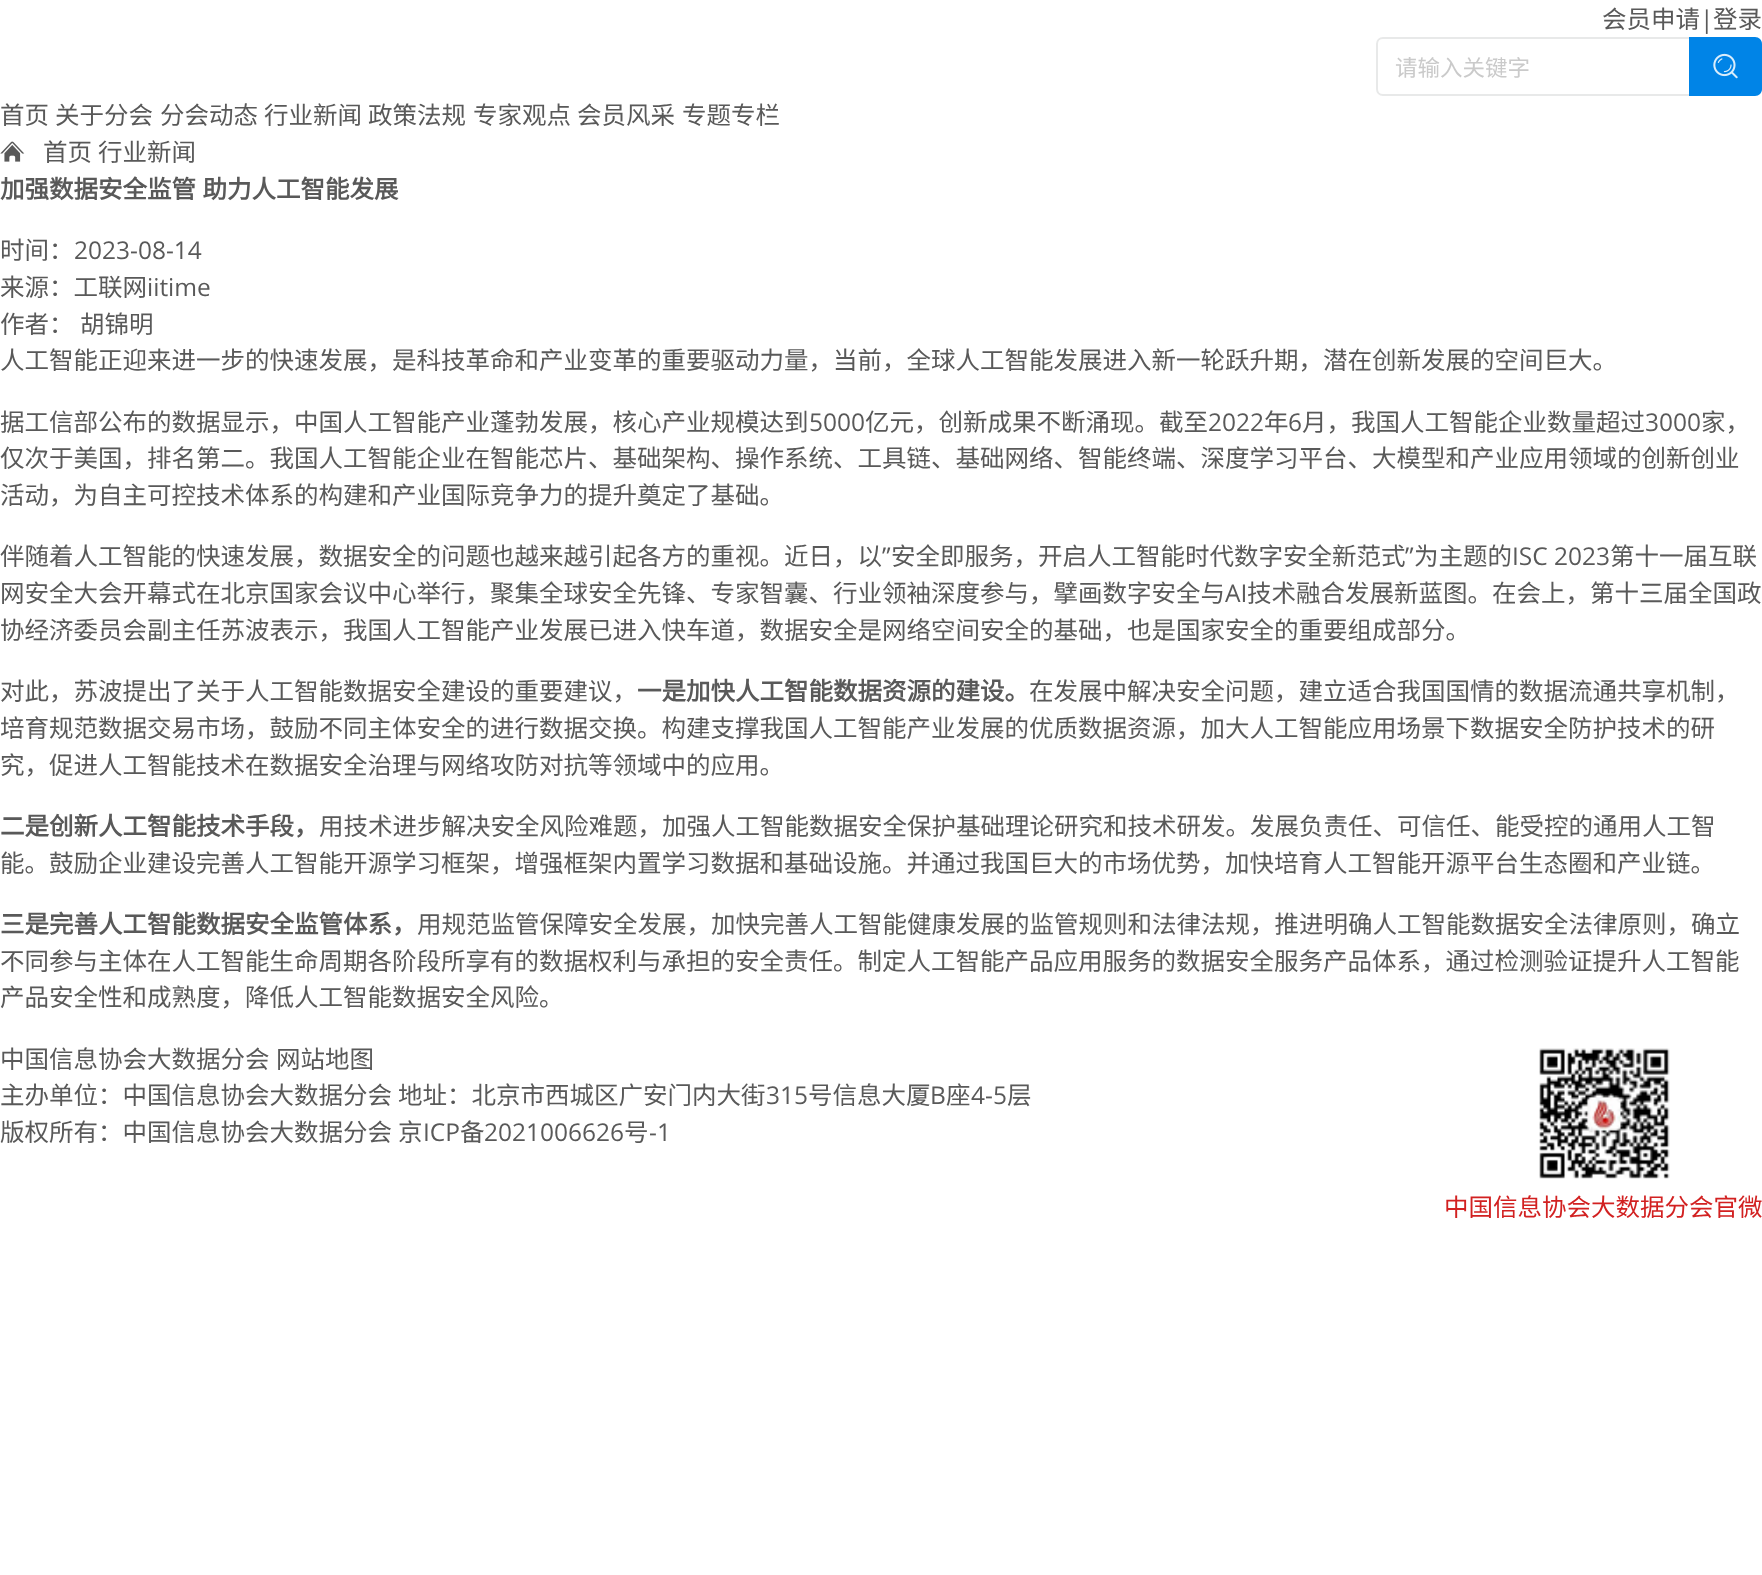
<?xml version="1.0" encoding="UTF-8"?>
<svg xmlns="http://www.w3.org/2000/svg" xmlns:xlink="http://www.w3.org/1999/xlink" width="1762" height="1575">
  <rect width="100%" height="100%" fill="#ffffff" />
  <path d="M 1383 38 h 307 v 57 h -307 c -3.5 0 -6 -2.5 -6 -6 v -45 c 0 -3.5 2.5 -6 6 -6 z" fill="none" stroke="#e8e9e9" stroke-width="2" />
  <path d="M 1689 37 h 66 c 4 0 7 3 7 7 v 45 c 0 4 -3 7 -7 7 h -66 z" fill="#0084e7" />
  <image x="1713" y="53" width="25" height="26" xlink:href="image1.png" />
  <image x="0" y="141" width="25" height="21" xlink:href="image2.png" />
  <image x="1539" y="1048" width="131" height="131" xlink:href="image3.png" />
  <text x="1602" y="28" style="font-family: Noto Sans CJK SC; font-size: 24.5px; fill: #595959">会员申请</text>
  <text x="1700" y="28" style="font-family: Open Sans; font-size: 24.5px; fill: #595959">|</text>
  <text x="1713" y="28" style="font-family: Noto Sans CJK SC; font-size: 24.5px; fill: #595959">登录</text>
  <text x="1395" y="76" style="font-family: Noto Sans CJK SC; font-size: 22.5px; fill: #cacaca">请输入关键字</text>
  <text x="0" y="124" style="font-family: Noto Sans CJK SC; font-size: 24.5px; fill: #595959">首页</text>
  <text x="55" y="124" style="font-family: Noto Sans CJK SC; font-size: 24.5px; fill: #595959">关于分会</text>
  <text x="160" y="124" style="font-family: Noto Sans CJK SC; font-size: 24.5px; fill: #595959">分会动态</text>
  <text x="264" y="124" style="font-family: Noto Sans CJK SC; font-size: 24.5px; fill: #595959">行业新闻</text>
  <text x="368" y="124" style="font-family: Noto Sans CJK SC; font-size: 24.5px; fill: #595959">政策法规</text>
  <text x="473" y="124" style="font-family: Noto Sans CJK SC; font-size: 24.5px; fill: #595959">专家观点</text>
  <text x="577" y="124" style="font-family: Noto Sans CJK SC; font-size: 24.5px; fill: #595959">会员风采</text>
  <text x="682" y="124" style="font-family: Noto Sans CJK SC; font-size: 24.5px; fill: #595959">专题专栏</text>
  <text x="43" y="161" style="font-family: Noto Sans CJK SC; font-size: 24.5px; fill: #595959">首页</text>
  <text x="98" y="161" style="font-family: Noto Sans CJK SC; font-size: 24.5px; fill: #595959">行业新闻</text>
  <text x="0" y="198" word-spacing="1" style="font-family: Noto Sans CJK SC; font-size: 24.5px; font-weight: bold; fill: #595959">加强数据安全监管 助力人工智能发展</text>
  <text x="0" y="259" style="font-family: Noto Sans CJK SC; font-size: 24.5px; fill: #595959">时间：</text>
  <text x="74" y="259" style="font-family: Open Sans; font-size: 24.5px; fill: #595959">2023-08-14</text>
  <text x="0" y="296" style="font-family: Noto Sans CJK SC; font-size: 24.5px; fill: #595959">来源：工联网</text>
  <text x="147" y="296" style="font-family: Open Sans; font-size: 24.5px; fill: #595959">iitime</text>
  <text x="0" y="333" style="font-family: Noto Sans CJK SC; font-size: 24.5px; fill: #595959">作者：</text>
  <text x="80" y="333" style="font-family: Noto Sans CJK SC; font-size: 24.5px; fill: #595959">胡锦明</text>
  <text x="0" y="369" style="font-family: Noto Sans CJK SC; font-size: 24.5px; fill: #595959">人工智能正迎来进一步的快速发展，是科技革命和产业变革的重要驱动力量，当前，全球人工智能发展进入新一轮跃升期，潜在创新发展的空间巨大。</text>
  <text x="0" y="431" style="font-family: Noto Sans CJK SC; font-size: 24.5px; fill: #595959">据工信部公布的数据显示，中国人工智能产业蓬勃发展，核心产业规模达到</text>
  <text x="809" y="431" style="font-family: Open Sans; font-size: 24.5px; fill: #595959">5000</text>
  <text x="865" y="431" style="font-family: Noto Sans CJK SC; font-size: 24.5px; fill: #595959">亿元，创新成果不断涌现。截至</text>
  <text x="1208" y="431" style="font-family: Open Sans; font-size: 24.5px; fill: #595959">2022</text>
  <text x="1264" y="431" style="font-family: Noto Sans CJK SC; font-size: 24.5px; fill: #595959">年</text>
  <text x="1288" y="431" style="font-family: Open Sans; font-size: 24.5px; fill: #595959">6</text>
  <text x="1302" y="431" style="font-family: Noto Sans CJK SC; font-size: 24.5px; fill: #595959">月，我国人工智能企业数量超过</text>
  <text x="1645" y="431" style="font-family: Open Sans; font-size: 24.5px; fill: #595959">3000</text>
  <text x="1701" y="431" style="font-family: Noto Sans CJK SC; font-size: 24.5px; fill: #595959">家，</text>
  <text x="0" y="467" style="font-family: Noto Sans CJK SC; font-size: 24.5px; fill: #595959">仅次于美国，排名第二。我国人工智能企业在智能芯片、基础架构、操作系统、工具链、基础网络、智能终端、深度学习平台、大模型和产业应用领域的创新创业</text>
  <text x="0" y="504" style="font-family: Noto Sans CJK SC; font-size: 24.5px; fill: #595959">活动，为自主可控技术体系的构建和产业国际竞争力的提升奠定了基础。</text>
  <text x="0" y="565" style="font-family: Noto Sans CJK SC; font-size: 24.5px; fill: #595959">伴随着人工智能的快速发展，数据安全的问题也越来越引起各方的重视。近日，以</text>
  <text x="882" y="565" style="font-family: Open Sans; font-size: 24.5px; fill: #595959">”</text>
  <text x="891" y="565" style="font-family: Noto Sans CJK SC; font-size: 24.5px; fill: #595959">安全即服务，开启人工智能时代数字安全新范式</text>
  <text x="1405" y="565" style="font-family: Open Sans; font-size: 24.5px; fill: #595959">”</text>
  <text x="1414" y="565" style="font-family: Noto Sans CJK SC; font-size: 24.5px; fill: #595959">为主题的</text>
  <text x="1512" y="565" style="font-family: Open Sans; font-size: 24.5px; fill: #595959">ISC 2023</text>
  <text x="1610" y="565" style="font-family: Noto Sans CJK SC; font-size: 24.5px; fill: #595959">第十一届互联</text>
  <text x="0" y="602" style="font-family: Noto Sans CJK SC; font-size: 24.5px; fill: #595959">网安全大会开幕式在北京国家会议中心举行，聚集全球安全先锋、专家智囊、行业领袖深度参与，擘画数字安全与</text>
  <text x="1225" y="602" style="font-family: Open Sans; font-size: 24.5px; fill: #595959">AI</text>
  <text x="1247" y="602" style="font-family: Noto Sans CJK SC; font-size: 24.5px; fill: #595959">技术融合发展新蓝图。在会上，第十三届全国政</text>
  <text x="0" y="639" style="font-family: Noto Sans CJK SC; font-size: 24.5px; fill: #595959">协经济委员会副主任苏波表示，我国人工智能产业发展已进入快车道，数据安全是网络空间安全的基础，也是国家安全的重要组成部分。</text>
  <text x="0" y="700" style="font-family: Noto Sans CJK SC; font-size: 24.5px; fill: #595959">对此，苏波提出了关于人工智能数据安全建设的重要建议，</text>
  <text x="637" y="700" style="font-family: Noto Sans CJK SC; font-size: 24.5px; font-weight: bold; fill: #595959">一是加快人工智能数据资源的建设。</text>
  <text x="1029" y="700" style="font-family: Noto Sans CJK SC; font-size: 24.5px; fill: #595959">在发展中解决安全问题，建立适合我国国情的数据流通共享机制，</text>
  <text x="0" y="737" style="font-family: Noto Sans CJK SC; font-size: 24.5px; fill: #595959">培育规范数据交易市场，鼓励不同主体安全的进行数据交换。构建支撑我国人工智能产业发展的优质数据资源，加大人工智能应用场景下数据安全防护技术的研</text>
  <text x="0" y="774" style="font-family: Noto Sans CJK SC; font-size: 24.5px; fill: #595959">究，促进人工智能技术在数据安全治理与网络攻防对抗等领域中的应用。</text>
  <text x="0" y="835" style="font-family: Noto Sans CJK SC; font-size: 24.5px; font-weight: bold; fill: #595959">二是创新人工智能技术手段，</text>
  <text x="319" y="835" style="font-family: Noto Sans CJK SC; font-size: 24.5px; fill: #595959">用技术进步解决安全风险难题，加强人工智能数据安全保护基础理论研究和技术研发。发展负责任、可信任、能受控的通用人工智</text>
  <text x="0" y="872" style="font-family: Noto Sans CJK SC; font-size: 24.5px; fill: #595959">能。鼓励企业建设完善人工智能开源学习框架，增强框架内置学习数据和基础设施。并通过我国巨大的市场优势，加快培育人工智能开源平台生态圈和产业链。</text>
  <text x="0" y="933" style="font-family: Noto Sans CJK SC; font-size: 24.5px; font-weight: bold; fill: #595959">三是完善人工智能数据安全监管体系，</text>
  <text x="417" y="933" style="font-family: Noto Sans CJK SC; font-size: 24.5px; fill: #595959">用规范监管保障安全发展，加快完善人工智能健康发展的监管规则和法律法规，推进明确人工智能数据安全法律原则，确立</text>
  <text x="0" y="970" style="font-family: Noto Sans CJK SC; font-size: 24.5px; fill: #595959">不同参与主体在人工智能生命周期各阶段所享有的数据权利与承担的安全责任。制定人工智能产品应用服务的数据安全服务产品体系，通过检测验证提升人工智能</text>
  <text x="0" y="1006" style="font-family: Noto Sans CJK SC; font-size: 24.5px; fill: #595959">产品安全性和成熟度，降低人工智能数据安全风险。</text>
  <text x="0" y="1068" style="font-family: Noto Sans CJK SC; font-size: 24.5px; fill: #595959">中国信息协会大数据分会</text>
  <text x="276" y="1068" style="font-family: Noto Sans CJK SC; font-size: 24.5px; fill: #595959">网站地图</text>
  <text x="0" y="1104" style="font-family: Noto Sans CJK SC; font-size: 24.5px; fill: #595959">主办单位：中国信息协会大数据分会</text>
  <text x="398" y="1104" style="font-family: Noto Sans CJK SC; font-size: 24.5px; fill: #595959">地址：北京市西城区广安门内大街</text>
  <text x="766" y="1104" style="font-family: Open Sans; font-size: 24.5px; fill: #595959">315</text>
  <text x="808" y="1104" style="font-family: Noto Sans CJK SC; font-size: 24.5px; fill: #595959">号信息大厦</text>
  <text x="930" y="1104" style="font-family: Open Sans; font-size: 24.5px; fill: #595959">B</text>
  <text x="946" y="1104" style="font-family: Noto Sans CJK SC; font-size: 24.5px; fill: #595959">座</text>
  <text x="971" y="1104" style="font-family: Open Sans; font-size: 24.5px; fill: #595959">4-5</text>
  <text x="1007" y="1104" style="font-family: Noto Sans CJK SC; font-size: 24.5px; fill: #595959">层</text>
  <text x="0" y="1141" style="font-family: Noto Sans CJK SC; font-size: 24.5px; fill: #595959">版权所有：中国信息协会大数据分会</text>
  <text x="398" y="1141" style="font-family: Noto Sans CJK SC; font-size: 24.5px; fill: #595959">京</text>
  <text x="423" y="1141" style="font-family: Open Sans; font-size: 24.5px; fill: #595959">ICP</text>
  <text x="460" y="1141" style="font-family: Noto Sans CJK SC; font-size: 24.5px; fill: #595959">备</text>
  <text x="484" y="1141" style="font-family: Open Sans; font-size: 24.5px; fill: #595959">2021006626</text>
  <text x="624" y="1141" style="font-family: Noto Sans CJK SC; font-size: 24.5px; fill: #595959">号</text>
  <text x="649" y="1141" style="font-family: Open Sans; font-size: 24.5px; fill: #595959">-1</text>
  <text x="1444" y="1216" style="font-family: Noto Sans CJK SC; font-size: 24.5px; fill: #d22121">中国信息协会大数据分会官微</text>
</svg>
